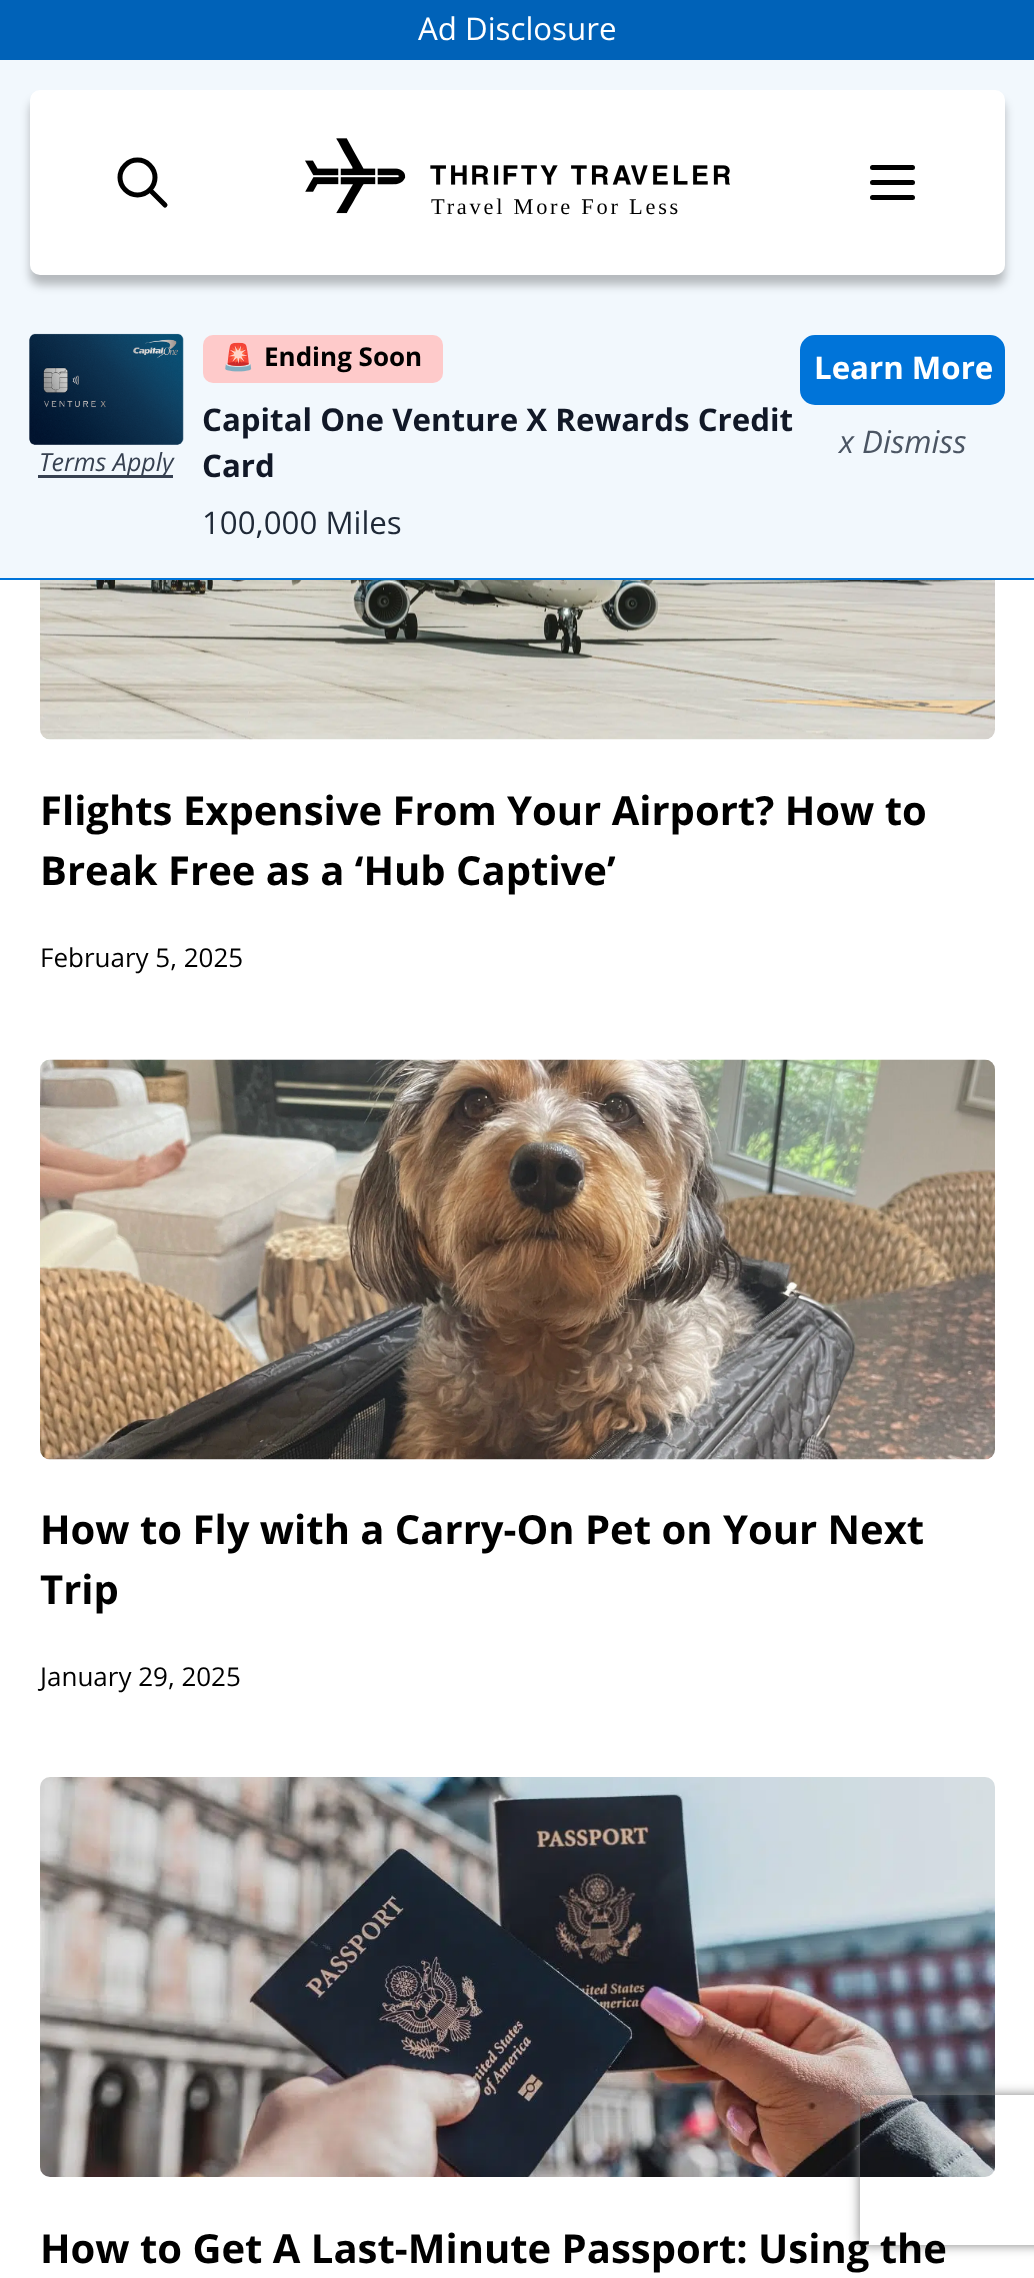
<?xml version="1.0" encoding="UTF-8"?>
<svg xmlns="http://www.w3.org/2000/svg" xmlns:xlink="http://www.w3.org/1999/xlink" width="1034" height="2278">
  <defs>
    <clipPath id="clip1"><path d="M 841 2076 h 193 v 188 h -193 z m 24 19 h 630 c 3 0 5 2 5 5 v 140 c 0 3 -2 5 -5 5 h -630 c -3 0 -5 -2 -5 -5 v -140 c 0 -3 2 -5 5 -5 z" clip-rule="evenodd" /></clipPath>
  </defs>
  <rect width="100%" height="100%" fill="#ffffff" />
  <rect y="60" width="1034" height="518" fill="#f2f8fd" />
  <rect width="1034" height="60" fill="#0062b8" />
  <rect x="30" y="100" width="975" height="185" rx="10" fill="#000000" fill-opacity="0.25" filter="blur(5px)" />
  <rect x="30" y="90" width="975" height="185" rx="10" fill="#ffffff" />
  <path d="M 120 177.5 c 0 9.5 8 17.5 17.5 17.5 c 9.5 0 17.5 -8 17.5 -17.5 c 0 -9.5 -8 -17.5 -17.5 -17.5 c -9.5 0 -17.5 8 -17.5 17.5 m 45 27.5 l -15 -15" fill="none" stroke="#000000" stroke-width="5" stroke-linecap="round" stroke-linejoin="round" />
  <path d="M 872.5 167.5 h 40 m -40 15 h 40 m -40 15 h 40" fill="none" stroke="#000000" stroke-width="5" stroke-linecap="round" stroke-linejoin="round" />
  <image x="305" y="138" width="425" height="76" xlink:href="image1.png" />
  <rect y="578" width="1034" height="2" fill="#0074d9" />
  <image x="29" y="333" width="155" height="112" xlink:href="image2.png" />
  <rect x="38" y="475" width="135" height="3" fill="#374151" />
  <rect x="203" y="335" width="240" height="48" rx="10" fill="#fecaca" />
  <rect x="801.5" y="336.5" width="202" height="67" rx="13.5" fill="#0074d9" stroke="#0074d9" stroke-width="3" />
  <image x="40" y="580" width="955" height="160" xlink:href="image3.png" />
  <image x="40" y="1059" width="955" height="401" xlink:href="image4.png" />
  <image x="40" y="1777" width="955" height="400" xlink:href="image5.png" />
  <g clip-path="url(#clip1)">
    <rect x="860" y="2095" width="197" height="150" rx="5" fill="#808080" filter="blur(6px)" />
  </g>
  <text x="418" y="40" style="font-family: Open Sans; font-size: 31.25px; fill: #ffffff">Ad Disclosure</text>
  <text x="431" y="214" style="font-family: Liberation Serif; font-size: 22.4px; letter-spacing: 2.75px; fill: #000000">Travel More For Less</text>
  <text x="39" y="471" style="font-family: Open Sans; font-size: 25px; font-style: italic; fill: #374151">Terms Apply</text>
  <text x="222" y="366" style="font-family: Noto Color Emoji; font-size: 26px; fill: #000000">🚨</text>
  <text x="264" y="366" style="font-family: Open Sans; font-size: 26px; font-weight: bold; fill: #000000">Ending Soon</text>
  <text x="202" y="431" style="font-family: Open Sans; font-size: 31.25px; font-weight: bold; fill: #111827">Capital One Venture X Rewards Credit</text>
  <text x="202" y="477" style="font-family: Open Sans; font-size: 31.25px; font-weight: bold; fill: #111827">Card</text>
  <text x="202" y="534" style="font-family: Open Sans; font-size: 31.25px; fill: #1f2937">100,000 Miles</text>
  <text x="814" y="379" style="font-family: Open Sans; font-size: 31.25px; font-weight: bold; fill: #ffffff">Learn More</text>
  <text x="839" y="453" style="font-family: Open Sans; font-size: 31.25px; font-style: italic; fill: #4b5563">x Dismiss</text>
  <text x="40" y="825" style="font-family: Open Sans; font-size: 40px; font-weight: bold; fill: #000000">Flights Expensive From Your Airport? How to</text>
  <text x="40" y="885" style="font-family: Open Sans; font-size: 40px; font-weight: bold; fill: #000000">Break Free as a ‘Hub Captive’</text>
  <text x="40" y="967" style="font-family: Open Sans; font-size: 26px; fill: #000000">February 5, 2025</text>
  <text x="40" y="1544" style="font-family: Open Sans; font-size: 40px; font-weight: bold; fill: #000000">How to Fly with a Carry-On Pet on Your Next</text>
  <text x="40" y="1604" style="font-family: Open Sans; font-size: 40px; font-weight: bold; fill: #000000">Trip</text>
  <text x="40" y="1686" style="font-family: Open Sans; font-size: 26px; fill: #000000">January 29, 2025</text>
  <text x="40" y="2263" style="font-family: Open Sans; font-size: 40px; font-weight: bold; fill: #000000">How to Get A Last-Minute Passport: Using the</text>
</svg>
